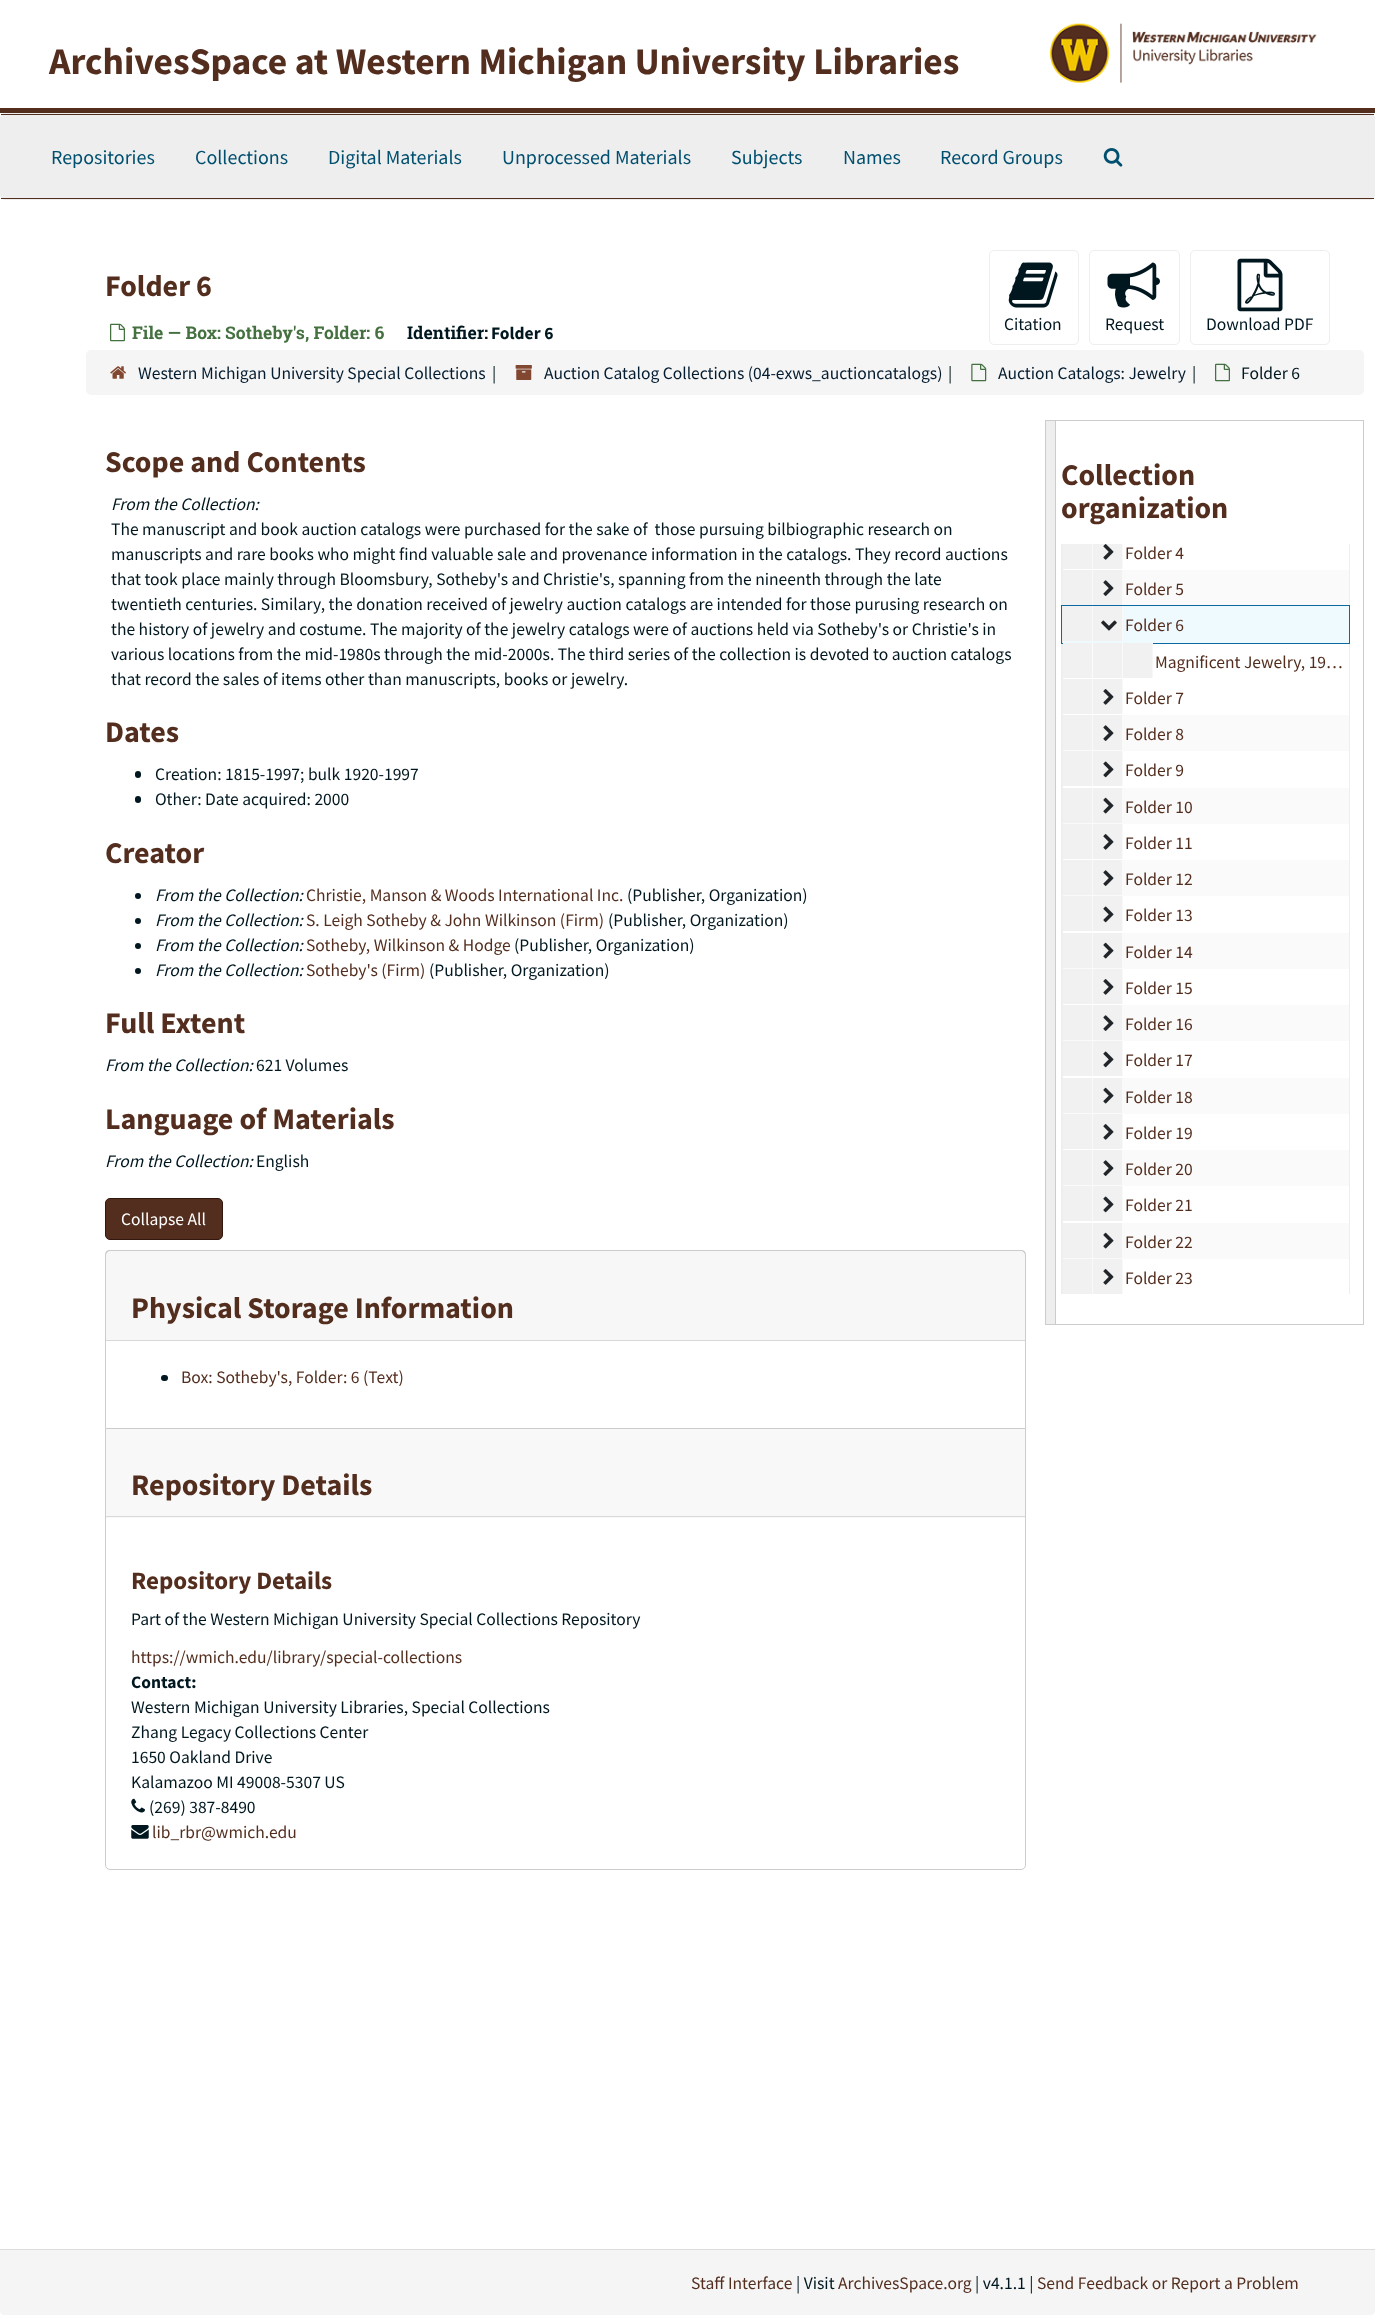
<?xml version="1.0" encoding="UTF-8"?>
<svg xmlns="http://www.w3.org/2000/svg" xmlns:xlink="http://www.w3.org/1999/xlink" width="1375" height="2315">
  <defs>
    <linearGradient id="g1" gradientUnits="userSpaceOnUse" x1="1063" y1="551" x2="1123" y2="551"><stop offset="0" stop-color="#f1f1f1" /><stop offset="0.48" stop-color="#f1f1f1" /><stop offset="0.5" stop-color="#ffffff" /><stop offset="0.5" stop-color="#f1f1f1" /><stop offset="0.98" stop-color="#f1f1f1" /><stop offset="1" stop-color="#ffffff" /></linearGradient>
    <linearGradient id="g2" gradientUnits="userSpaceOnUse" x1="1063" y1="588" x2="1123" y2="588"><stop offset="0" stop-color="#f1f1f1" /><stop offset="0.48" stop-color="#f1f1f1" /><stop offset="0.5" stop-color="#ffffff" /><stop offset="0.5" stop-color="#f1f1f1" /><stop offset="0.98" stop-color="#f1f1f1" /><stop offset="1" stop-color="#ffffff" /></linearGradient>
    <linearGradient id="g3" gradientUnits="userSpaceOnUse" x1="1063" y1="624" x2="1123" y2="624"><stop offset="0" stop-color="#f1f1f1" /><stop offset="0.48" stop-color="#f1f1f1" /><stop offset="0.5" stop-color="#ffffff" /><stop offset="0.5" stop-color="#f1f1f1" /><stop offset="0.98" stop-color="#f1f1f1" /><stop offset="1" stop-color="#ffffff" /></linearGradient>
    <linearGradient id="g4" gradientUnits="userSpaceOnUse" x1="1063" y1="660" x2="1153" y2="660"><stop offset="0" stop-color="#f1f1f1" /><stop offset="0.32" stop-color="#f1f1f1" /><stop offset="0.33" stop-color="#ffffff" /><stop offset="0.33" stop-color="#f1f1f1" /><stop offset="0.65" stop-color="#f1f1f1" /><stop offset="0.67" stop-color="#ffffff" /><stop offset="0.67" stop-color="#f1f1f1" /><stop offset="0.99" stop-color="#f1f1f1" /><stop offset="1" stop-color="#ffffff" /></linearGradient>
    <linearGradient id="g5" gradientUnits="userSpaceOnUse" x1="1063" y1="696" x2="1123" y2="696"><stop offset="0" stop-color="#f1f1f1" /><stop offset="0.48" stop-color="#f1f1f1" /><stop offset="0.5" stop-color="#ffffff" /><stop offset="0.5" stop-color="#f1f1f1" /><stop offset="0.98" stop-color="#f1f1f1" /><stop offset="1" stop-color="#ffffff" /></linearGradient>
    <linearGradient id="g6" gradientUnits="userSpaceOnUse" x1="1063" y1="733" x2="1123" y2="733"><stop offset="0" stop-color="#f1f1f1" /><stop offset="0.48" stop-color="#f1f1f1" /><stop offset="0.5" stop-color="#ffffff" /><stop offset="0.5" stop-color="#f1f1f1" /><stop offset="0.98" stop-color="#f1f1f1" /><stop offset="1" stop-color="#ffffff" /></linearGradient>
    <linearGradient id="g7" gradientUnits="userSpaceOnUse" x1="1063" y1="769" x2="1123" y2="769"><stop offset="0" stop-color="#f1f1f1" /><stop offset="0.48" stop-color="#f1f1f1" /><stop offset="0.5" stop-color="#ffffff" /><stop offset="0.5" stop-color="#f1f1f1" /><stop offset="0.98" stop-color="#f1f1f1" /><stop offset="1" stop-color="#ffffff" /></linearGradient>
    <linearGradient id="g8" gradientUnits="userSpaceOnUse" x1="1063" y1="805" x2="1123" y2="805"><stop offset="0" stop-color="#f1f1f1" /><stop offset="0.48" stop-color="#f1f1f1" /><stop offset="0.5" stop-color="#ffffff" /><stop offset="0.5" stop-color="#f1f1f1" /><stop offset="0.98" stop-color="#f1f1f1" /><stop offset="1" stop-color="#ffffff" /></linearGradient>
    <linearGradient id="g9" gradientUnits="userSpaceOnUse" x1="1063" y1="841" x2="1123" y2="841"><stop offset="0" stop-color="#f1f1f1" /><stop offset="0.48" stop-color="#f1f1f1" /><stop offset="0.5" stop-color="#ffffff" /><stop offset="0.5" stop-color="#f1f1f1" /><stop offset="0.98" stop-color="#f1f1f1" /><stop offset="1" stop-color="#ffffff" /></linearGradient>
    <linearGradient id="g10" gradientUnits="userSpaceOnUse" x1="1063" y1="878" x2="1123" y2="878"><stop offset="0" stop-color="#f1f1f1" /><stop offset="0.48" stop-color="#f1f1f1" /><stop offset="0.5" stop-color="#ffffff" /><stop offset="0.5" stop-color="#f1f1f1" /><stop offset="0.98" stop-color="#f1f1f1" /><stop offset="1" stop-color="#ffffff" /></linearGradient>
    <linearGradient id="g11" gradientUnits="userSpaceOnUse" x1="1063" y1="914" x2="1123" y2="914"><stop offset="0" stop-color="#f1f1f1" /><stop offset="0.48" stop-color="#f1f1f1" /><stop offset="0.5" stop-color="#ffffff" /><stop offset="0.5" stop-color="#f1f1f1" /><stop offset="0.98" stop-color="#f1f1f1" /><stop offset="1" stop-color="#ffffff" /></linearGradient>
    <linearGradient id="g12" gradientUnits="userSpaceOnUse" x1="1063" y1="950" x2="1123" y2="950"><stop offset="0" stop-color="#f1f1f1" /><stop offset="0.48" stop-color="#f1f1f1" /><stop offset="0.5" stop-color="#ffffff" /><stop offset="0.5" stop-color="#f1f1f1" /><stop offset="0.98" stop-color="#f1f1f1" /><stop offset="1" stop-color="#ffffff" /></linearGradient>
    <linearGradient id="g13" gradientUnits="userSpaceOnUse" x1="1063" y1="986" x2="1123" y2="986"><stop offset="0" stop-color="#f1f1f1" /><stop offset="0.48" stop-color="#f1f1f1" /><stop offset="0.5" stop-color="#ffffff" /><stop offset="0.5" stop-color="#f1f1f1" /><stop offset="0.98" stop-color="#f1f1f1" /><stop offset="1" stop-color="#ffffff" /></linearGradient>
    <linearGradient id="g14" gradientUnits="userSpaceOnUse" x1="1063" y1="1023" x2="1123" y2="1023"><stop offset="0" stop-color="#f1f1f1" /><stop offset="0.48" stop-color="#f1f1f1" /><stop offset="0.5" stop-color="#ffffff" /><stop offset="0.5" stop-color="#f1f1f1" /><stop offset="0.98" stop-color="#f1f1f1" /><stop offset="1" stop-color="#ffffff" /></linearGradient>
    <linearGradient id="g15" gradientUnits="userSpaceOnUse" x1="1063" y1="1059" x2="1123" y2="1059"><stop offset="0" stop-color="#f1f1f1" /><stop offset="0.48" stop-color="#f1f1f1" /><stop offset="0.5" stop-color="#ffffff" /><stop offset="0.5" stop-color="#f1f1f1" /><stop offset="0.98" stop-color="#f1f1f1" /><stop offset="1" stop-color="#ffffff" /></linearGradient>
    <linearGradient id="g16" gradientUnits="userSpaceOnUse" x1="1063" y1="1095" x2="1123" y2="1095"><stop offset="0" stop-color="#f1f1f1" /><stop offset="0.48" stop-color="#f1f1f1" /><stop offset="0.5" stop-color="#ffffff" /><stop offset="0.5" stop-color="#f1f1f1" /><stop offset="0.98" stop-color="#f1f1f1" /><stop offset="1" stop-color="#ffffff" /></linearGradient>
    <linearGradient id="g17" gradientUnits="userSpaceOnUse" x1="1063" y1="1131" x2="1123" y2="1131"><stop offset="0" stop-color="#f1f1f1" /><stop offset="0.48" stop-color="#f1f1f1" /><stop offset="0.5" stop-color="#ffffff" /><stop offset="0.5" stop-color="#f1f1f1" /><stop offset="0.98" stop-color="#f1f1f1" /><stop offset="1" stop-color="#ffffff" /></linearGradient>
    <linearGradient id="g18" gradientUnits="userSpaceOnUse" x1="1063" y1="1168" x2="1123" y2="1168"><stop offset="0" stop-color="#f1f1f1" /><stop offset="0.48" stop-color="#f1f1f1" /><stop offset="0.5" stop-color="#ffffff" /><stop offset="0.5" stop-color="#f1f1f1" /><stop offset="0.98" stop-color="#f1f1f1" /><stop offset="1" stop-color="#ffffff" /></linearGradient>
    <linearGradient id="g19" gradientUnits="userSpaceOnUse" x1="1063" y1="1204" x2="1123" y2="1204"><stop offset="0" stop-color="#f1f1f1" /><stop offset="0.48" stop-color="#f1f1f1" /><stop offset="0.5" stop-color="#ffffff" /><stop offset="0.5" stop-color="#f1f1f1" /><stop offset="0.98" stop-color="#f1f1f1" /><stop offset="1" stop-color="#ffffff" /></linearGradient>
    <linearGradient id="g20" gradientUnits="userSpaceOnUse" x1="1063" y1="1240" x2="1123" y2="1240"><stop offset="0" stop-color="#f1f1f1" /><stop offset="0.48" stop-color="#f1f1f1" /><stop offset="0.5" stop-color="#ffffff" /><stop offset="0.5" stop-color="#f1f1f1" /><stop offset="0.98" stop-color="#f1f1f1" /><stop offset="1" stop-color="#ffffff" /></linearGradient>
    <linearGradient id="g21" gradientUnits="userSpaceOnUse" x1="1063" y1="1276" x2="1123" y2="1276"><stop offset="0" stop-color="#f1f1f1" /><stop offset="0.48" stop-color="#f1f1f1" /><stop offset="0.5" stop-color="#ffffff" /><stop offset="0.5" stop-color="#f1f1f1" /><stop offset="0.98" stop-color="#f1f1f1" /><stop offset="1" stop-color="#ffffff" /></linearGradient>
  </defs>
  <rect width="100%" height="100%" fill="#ffffff" />
  <rect y="108" width="1375" height="5" fill="#532e1f" />
  <image x="1050" y="23" width="267" height="60" xlink:href="image1.png" />
  <rect x="0.5" y="113.5" width="1374" height="86" rx="4.5" fill="none" stroke="#eeeeee" />
  <rect x="1" y="115" width="1373" height="83" fill="#eeeeee" />
  <rect x="1" y="114" width="1373" height="1" fill="#532e1f" />
  <rect x="1" y="198" width="1373" height="1" fill="#532e1f" />
  <image x="1103" y="148" width="20" height="19" xlink:href="image2.png" />
  <image x="110" y="323" width="15" height="19" xlink:href="image3.png" />
  <rect x="989.5" y="250.5" width="89" height="94" rx="4.5" fill="none" stroke="#eeeeee" />
  <image x="1008" y="262" width="50" height="46" xlink:href="image4.png" />
  <rect x="1089.5" y="250.5" width="90" height="94" rx="4.5" fill="none" stroke="#eeeeee" />
  <image x="1107" y="262" width="53" height="46" xlink:href="image5.png" />
  <rect x="1190.5" y="250.5" width="139" height="94" rx="4.5" fill="none" stroke="#eeeeee" />
  <image x="1237" y="258" width="46" height="54" xlink:href="image6.png" />
  <rect x="86" y="350" width="1278" height="45" rx="5" fill="#f5f5f5" />
  <image x="110" y="366" width="16" height="13" xlink:href="image7.png" />
  <image x="515" y="365" width="17" height="15" xlink:href="image8.png" />
  <image x="971" y="363" width="16" height="19" xlink:href="image9.png" />
  <image x="1215" y="363" width="15" height="19" xlink:href="image10.png" />
  <rect x="135" y="771" width="6" height="7" rx="3" fill="#00171f" />
  <rect x="135" y="796" width="6" height="7" rx="3" fill="#00171f" />
  <circle cx="138" cy="896" r="3" fill="#00171f" />
  <circle cx="138" cy="921" r="3" fill="#00171f" />
  <circle cx="138" cy="946" r="3" fill="#00171f" />
  <circle cx="138" cy="971" r="3" fill="#00171f" />
  <rect x="105.5" y="1198.5" width="117" height="41" rx="4.5" fill="#532e1f" stroke="#31170d" />
  <path d="M 110 1250 h 911 c 3 0 5 2 5 5 v 173 h -921 v -173 c 0 -3 2 -5 5 -5 z m 0 1 h 911 c 2 0 4 2 4 4 v 173 h -919 v -173 c 0 -2 2 -4 4 -4 z" fill="#cccccc" fill-rule="evenodd" />
  <rect x="106" y="1251" width="919" height="89" fill="#000000" fill-opacity="0.03" />
  <rect x="106" y="1340" width="919" height="1" fill="#d8d8d8" />
  <rect x="161" y="1375" width="7" height="6" rx="3" fill="#00171f" />
  <path d="M 105.5 1428.5 h 920 v 436.5 c 0 2.5 -2 4.5 -4.5 4.5 h -911 c -2.5 0 -4.5 -2 -4.5 -4.5 z" fill="none" stroke="#cccccc" />
  <rect x="106" y="1429" width="919" height="89" fill="#f8f8f8" />
  <rect x="106" y="1516" width="919" height="1" fill="#d9d9d9" />
  <image x="131" y="1798" width="14" height="15" xlink:href="image11.png" />
  <image x="131" y="1825" width="18" height="14" xlink:href="image12.png" />
  <rect x="1045.5" y="420.5" width="318" height="904" fill="none" stroke="#cccccc" />
  <rect x="1046" y="421" width="9" height="903" fill="#eeeeee" />
  <rect x="1055" y="421" width="1" height="903" fill="#cccccc" />
  <rect x="1061" y="544" width="289" height="750" fill="#eeeeee" />
  <rect x="1063" y="544" width="286" height="26" fill="#ffffff" />
  <rect x="1063" y="544" width="60" height="25" fill="url(#g1)" />
  <image x="1103" y="544" width="11" height="16" xlink:href="image13.png" />
  <rect x="1123" y="570" width="226" height="35" fill="#fafafa" />
  <rect x="1063" y="570" width="60" height="35" fill="url(#g2)" />
  <image x="1103" y="580" width="11" height="16" xlink:href="image14.png" />
  <rect x="1061.5" y="605.5" width="288" height="38" fill="none" stroke="#0a6aa1" />
  <rect x="1063" y="606" width="286" height="37" fill="#effaff" />
  <rect x="1063" y="606" width="60" height="35" fill="url(#g3)" />
  <image x="1101" y="620" width="16" height="11" xlink:href="image15.png" />
  <rect x="1063" y="644" width="286" height="71" fill="#ffffff" />
  <rect x="1063" y="643" width="90" height="35" fill="url(#g4)" />
  <rect x="1063" y="679" width="60" height="35" fill="url(#g5)" />
  <image x="1103" y="689" width="11" height="16" xlink:href="image13.png" />
  <rect x="1063" y="715" width="286" height="36" fill="#fafafa" />
  <rect x="1063" y="715" width="59" height="35" fill="url(#g6)" />
  <image x="1103" y="725" width="11" height="16" xlink:href="image14.png" />
  <rect x="1063" y="751" width="286" height="37" fill="#ffffff" />
  <rect x="1063" y="751" width="60" height="35" fill="url(#g7)" />
  <image x="1103" y="761" width="11" height="17" xlink:href="image16.png" />
  <rect x="1063" y="788" width="286" height="36" fill="#fafafa" />
  <rect x="1063" y="788" width="59" height="35" fill="url(#g8)" />
  <image x="1103" y="797" width="11" height="17" xlink:href="image17.png" />
  <rect x="1063" y="824" width="286" height="36" fill="#ffffff" />
  <rect x="1063" y="824" width="60" height="35" fill="url(#g9)" />
  <image x="1103" y="834" width="11" height="16" xlink:href="image13.png" />
  <rect x="1063" y="860" width="286" height="36" fill="#fafafa" />
  <rect x="1063" y="860" width="59" height="35" fill="url(#g10)" />
  <image x="1103" y="870" width="11" height="16" xlink:href="image14.png" />
  <rect x="1063" y="896" width="286" height="37" fill="#ffffff" />
  <rect x="1063" y="896" width="60" height="35" fill="url(#g11)" />
  <image x="1103" y="906" width="11" height="17" xlink:href="image16.png" />
  <rect x="1063" y="933" width="286" height="36" fill="#fafafa" />
  <rect x="1063" y="933" width="59" height="35" fill="url(#g12)" />
  <image x="1103" y="942" width="11" height="17" xlink:href="image17.png" />
  <rect x="1063" y="969" width="286" height="36" fill="#ffffff" />
  <rect x="1063" y="969" width="60" height="35" fill="url(#g13)" />
  <image x="1103" y="979" width="11" height="16" xlink:href="image13.png" />
  <rect x="1063" y="1005" width="286" height="36" fill="#fafafa" />
  <rect x="1063" y="1005" width="59" height="35" fill="url(#g14)" />
  <image x="1103" y="1015" width="11" height="16" xlink:href="image14.png" />
  <rect x="1063" y="1041" width="286" height="37" fill="#ffffff" />
  <rect x="1063" y="1041" width="60" height="35" fill="url(#g15)" />
  <image x="1103" y="1051" width="11" height="17" xlink:href="image16.png" />
  <rect x="1063" y="1078" width="286" height="36" fill="#fafafa" />
  <rect x="1063" y="1078" width="59" height="35" fill="url(#g16)" />
  <image x="1103" y="1087" width="11" height="17" xlink:href="image17.png" />
  <rect x="1063" y="1114" width="286" height="36" fill="#ffffff" />
  <rect x="1063" y="1114" width="60" height="35" fill="url(#g17)" />
  <image x="1103" y="1124" width="11" height="16" xlink:href="image13.png" />
  <rect x="1063" y="1150" width="286" height="36" fill="#fafafa" />
  <rect x="1063" y="1150" width="59" height="35" fill="url(#g18)" />
  <image x="1103" y="1160" width="11" height="16" xlink:href="image14.png" />
  <rect x="1063" y="1186" width="286" height="37" fill="#ffffff" />
  <rect x="1063" y="1186" width="60" height="35" fill="url(#g19)" />
  <image x="1103" y="1196" width="11" height="17" xlink:href="image16.png" />
  <rect x="1063" y="1223" width="286" height="36" fill="#fafafa" />
  <rect x="1063" y="1223" width="59" height="35" fill="url(#g20)" />
  <image x="1103" y="1232" width="11" height="17" xlink:href="image17.png" />
  <rect x="1123" y="1259" width="226" height="35" fill="#ffffff" />
  <rect x="1063" y="1259" width="60" height="35" fill="url(#g21)" />
  <image x="1103" y="1269" width="11" height="16" xlink:href="image13.png" />
  <path d="M 0 2249 h 1375 v 62 c 0 2 -2 4 -4 4 h -1367 c -2 0 -4 -2 -4 -4 z" fill="#f5f5f5" />
  <rect y="2249" width="1375" height="1" fill="#dddddd" />
  <text x="49" y="74" style="font-family: Source Sans Pro; font-size: 37.5px; font-weight: bold; fill: #532e1f">ArchivesSpace at Western Michigan University Libraries</text>
  <text x="51" y="164" style="font-family: Source Sans Pro; font-size: 20px; fill: #004f6f">Repositories</text>
  <text x="195" y="164" style="font-family: Source Sans Pro; font-size: 20px; fill: #004f6f">Collections</text>
  <text x="328" y="164" style="font-family: Source Sans Pro; font-size: 20px; fill: #004f6f">Digital Materials</text>
  <text x="502" y="164" style="font-family: Source Sans Pro; font-size: 20px; fill: #004f6f">Unprocessed Materials</text>
  <text x="731" y="164" style="font-family: Source Sans Pro; font-size: 20px; fill: #004f6f">Subjects</text>
  <text x="843" y="164" style="font-family: Source Sans Pro; font-size: 20px; fill: #004f6f">Names</text>
  <text x="940" y="164" style="font-family: Source Sans Pro; font-size: 20px; fill: #004f6f">Record Groups</text>
  <text x="105" y="296" style="font-family: Source Sans Pro; font-size: 30px; font-weight: bold; fill: #532e1f">Folder 6</text>
  <text x="132" y="339" style="font-family: Roboto Slab; font-size: 17.5px; font-weight: bold; fill: #457141">File — Box: Sotheby's, Folder: 6</text>
  <text x="407" y="339" style="font-family: Roboto Slab; font-size: 17.5px; font-weight: bold; fill: #00171f">Identifier:</text>
  <text x="491" y="339" style="font-family: Source Sans Pro; font-size: 17.5px; font-weight: bold; fill: #00171f">Folder 6</text>
  <text x="1004" y="330" style="font-family: Source Sans Pro; font-size: 17.5px; fill: #00171f">Citation</text>
  <text x="1105" y="330" style="font-family: Source Sans Pro; font-size: 17.5px; fill: #00171f">Request</text>
  <text x="1206" y="330" style="font-family: Source Sans Pro; font-size: 17.5px; fill: #00171f">Download PDF</text>
  <text x="138" y="379" style="font-family: Source Sans Pro; font-size: 17.5px; fill: #041c2f">Western Michigan University Special Collections</text>
  <text x="492" y="379" style="font-family: Source Sans Pro; font-size: 17.5px; fill: #00171f">|</text>
  <text x="544" y="379" style="font-family: Source Sans Pro; font-size: 17.5px; fill: #041c2f">Auction Catalog Collections (04-exws_auctioncatalogs)</text>
  <text x="948" y="379" style="font-family: Source Sans Pro; font-size: 17.5px; fill: #00171f">|</text>
  <text x="998" y="379" style="font-family: Source Sans Pro; font-size: 17.5px; fill: #041c2f">Auction Catalogs: Jewelry</text>
  <text x="1192" y="379" style="font-family: Source Sans Pro; font-size: 17.5px; fill: #00171f">|</text>
  <text x="1241" y="379" style="font-family: Source Sans Pro; font-size: 17.5px; fill: #00171f">Folder 6</text>
  <text x="105" y="472" style="font-family: Source Sans Pro; font-size: 30px; font-weight: bold; fill: #532e1f">Scope and Contents</text>
  <text x="111" y="510" style="font-family: Source Sans Pro; font-size: 17.5px; font-style: italic; fill: #00171f">From the Collection:</text>
  <text x="111" y="535" style="font-family: Source Sans Pro; font-size: 17.5px; fill: #00171f" xml:space="preserve">The manuscript and book auction catalogs were purchased for the sake of  those pursuing bilbiographic research on</text>
  <text x="111" y="560" style="font-family: Source Sans Pro; font-size: 17.5px; fill: #00171f">manuscripts and rare books who might find valuable sale and provenance information in the catalogs. They record auctions</text>
  <text x="111" y="585" style="font-family: Source Sans Pro; font-size: 17.5px; fill: #00171f">that took place mainly through Bloomsbury, Sotheby's and Christie's, spanning from the nineenth through the late</text>
  <text x="111" y="610" style="font-family: Source Sans Pro; font-size: 17.5px; fill: #00171f">twentieth centuries. Similary, the donation received of jewelry auction catalogs are intended for those purusing research on</text>
  <text x="111" y="635" style="font-family: Source Sans Pro; font-size: 17.5px; fill: #00171f">the history of jewelry and costume. The majority of the jewelry catalogs were of auctions held via Sotheby's or Christie's in</text>
  <text x="111" y="660" style="font-family: Source Sans Pro; font-size: 17.5px; fill: #00171f">various locations from the mid-1980s through the mid-2000s. The third series of the collection is devoted to auction catalogs</text>
  <text x="111" y="685" style="font-family: Source Sans Pro; font-size: 17.5px; fill: #00171f">that record the sales of items other than manuscripts, books or jewelry.</text>
  <text x="105" y="742" style="font-family: Source Sans Pro; font-size: 30px; font-weight: bold; fill: #532e1f">Dates</text>
  <text x="155" y="780" style="font-family: Source Sans Pro; font-size: 17.5px; fill: #00171f">Creation: 1815-1997; bulk 1920-1997</text>
  <text x="155" y="805" style="font-family: Source Sans Pro; font-size: 17.5px; fill: #00171f">Other: Date acquired: 2000</text>
  <text x="105" y="863" style="font-family: Source Sans Pro; font-size: 30px; font-weight: bold; fill: #532e1f">Creator</text>
  <text x="155" y="901" style="font-family: Source Sans Pro; font-size: 17.5px; font-style: italic; fill: #00171f">From the Collection:</text>
  <text x="306" y="901" style="font-family: Source Sans Pro; font-size: 17.5px; fill: #532e1f">Christie, Manson &amp; Woods International Inc.</text>
  <text x="627" y="901" style="font-family: Source Sans Pro; font-size: 17.5px; fill: #00171f">(Publisher, Organization)</text>
  <text x="155" y="926" style="font-family: Source Sans Pro; font-size: 17.5px; font-style: italic; fill: #00171f">From the Collection:</text>
  <text x="306" y="926" style="font-family: Source Sans Pro; font-size: 17.5px; fill: #532e1f">S. Leigh Sotheby &amp; John Wilkinson (Firm)</text>
  <text x="608" y="926" style="font-family: Source Sans Pro; font-size: 17.5px; fill: #00171f">(Publisher, Organization)</text>
  <text x="155" y="951" style="font-family: Source Sans Pro; font-size: 17.5px; font-style: italic; fill: #00171f">From the Collection:</text>
  <text x="306" y="951" style="font-family: Source Sans Pro; font-size: 17.5px; fill: #532e1f">Sotheby, Wilkinson &amp; Hodge</text>
  <text x="514" y="951" style="font-family: Source Sans Pro; font-size: 17.5px; fill: #00171f">(Publisher, Organization)</text>
  <text x="155" y="976" style="font-family: Source Sans Pro; font-size: 17.5px; font-style: italic; fill: #00171f">From the Collection:</text>
  <text x="306" y="976" style="font-family: Source Sans Pro; font-size: 17.5px; fill: #532e1f">Sotheby's (Firm)</text>
  <text x="429" y="976" style="font-family: Source Sans Pro; font-size: 17.5px; fill: #00171f">(Publisher, Organization)</text>
  <text x="105" y="1033" style="font-family: Source Sans Pro; font-size: 30px; font-weight: bold; fill: #532e1f">Full Extent</text>
  <text x="105" y="1071" style="font-family: Source Sans Pro; font-size: 17.5px; font-style: italic; fill: #00171f">From the Collection:</text>
  <text x="256" y="1071" style="font-family: Source Sans Pro; font-size: 17.5px; fill: #00171f">621 Volumes</text>
  <text x="105" y="1129" style="font-family: Source Sans Pro; font-size: 30px; font-weight: bold; fill: #532e1f">Language of Materials</text>
  <text x="105" y="1167" style="font-family: Source Sans Pro; font-size: 17.5px; font-style: italic; fill: #00171f">From the Collection:</text>
  <text x="256" y="1167" style="font-family: Source Sans Pro; font-size: 17.5px; fill: #00171f">English</text>
  <text x="121" y="1225" style="font-family: Source Sans Pro; font-size: 17.5px; fill: #ffffff">Collapse All</text>
  <text x="131" y="1318" style="font-family: Source Sans Pro; font-size: 30px; font-weight: bold; fill: #532e1f">Physical Storage Information</text>
  <text x="181" y="1383" style="font-family: Source Sans Pro; font-size: 17.5px; fill: #532e1f">Box: Sotheby's, Folder: 6 (Text)</text>
  <text x="131" y="1495" style="font-family: Source Sans Pro; font-size: 30px; font-weight: bold; fill: #532e1f">Repository Details</text>
  <text x="131" y="1589" style="font-family: Source Sans Pro; font-size: 25px; font-weight: bold; fill: #532e1f">Repository Details</text>
  <text x="131" y="1625" style="font-family: Source Sans Pro; font-size: 17.5px; fill: #00171f">Part of the Western Michigan University Special Collections Repository</text>
  <text x="131" y="1663" style="font-family: Source Sans Pro; font-size: 17.5px; fill: #532e1f">https://wmich.edu/library/special-collections</text>
  <text x="131" y="1688" style="font-family: Source Sans Pro; font-size: 17.5px; font-weight: bold; fill: #00171f">Contact:</text>
  <text x="131" y="1713" style="font-family: Source Sans Pro; font-size: 17.5px; fill: #00171f">Western Michigan University Libraries, Special Collections</text>
  <text x="131" y="1738" style="font-family: Source Sans Pro; font-size: 17.5px; fill: #00171f">Zhang Legacy Collections Center</text>
  <text x="131" y="1763" style="font-family: Source Sans Pro; font-size: 17.5px; fill: #00171f">1650 Oakland Drive</text>
  <text x="131" y="1788" style="font-family: Source Sans Pro; font-size: 17.5px; fill: #00171f">Kalamazoo MI 49008-5307 US</text>
  <text x="149" y="1813" style="font-family: Source Sans Pro; font-size: 17.5px; fill: #00171f">(269) 387-8490</text>
  <text x="152" y="1838" style="font-family: Source Sans Pro; font-size: 17.5px; fill: #532e1f">lib_rbr@wmich.edu</text>
  <text x="1061" y="485" style="font-family: Source Sans Pro; font-size: 30px; font-weight: bold; fill: #532e1f">Collection</text>
  <text x="1061" y="518" style="font-family: Source Sans Pro; font-size: 30px; font-weight: bold; fill: #532e1f">organization</text>
  <text x="1125" y="559" style="font-family: Source Sans Pro; font-size: 17.5px; fill: #532e1f">Folder 4</text>
  <text x="1125" y="595" style="font-family: Source Sans Pro; font-size: 17.5px; fill: #532e1f">Folder 5</text>
  <text x="1125" y="631" style="font-family: Source Sans Pro; font-size: 17.5px; fill: #532e1f">Folder 6</text>
  <text x="1155" y="668" style="font-family: Source Sans Pro; font-size: 17.5px; fill: #532e1f">Magnificent Jewelry, 19…</text>
  <text x="1125" y="704" style="font-family: Source Sans Pro; font-size: 17.5px; fill: #532e1f">Folder 7</text>
  <text x="1125" y="740" style="font-family: Source Sans Pro; font-size: 17.5px; fill: #532e1f">Folder 8</text>
  <text x="1125" y="776" style="font-family: Source Sans Pro; font-size: 17.5px; fill: #532e1f">Folder 9</text>
  <text x="1125" y="813" style="font-family: Source Sans Pro; font-size: 17.5px; fill: #532e1f">Folder 10</text>
  <text x="1125" y="849" style="font-family: Source Sans Pro; font-size: 17.5px; fill: #532e1f">Folder 11</text>
  <text x="1125" y="885" style="font-family: Source Sans Pro; font-size: 17.5px; fill: #532e1f">Folder 12</text>
  <text x="1125" y="921" style="font-family: Source Sans Pro; font-size: 17.5px; fill: #532e1f">Folder 13</text>
  <text x="1125" y="958" style="font-family: Source Sans Pro; font-size: 17.5px; fill: #532e1f">Folder 14</text>
  <text x="1125" y="994" style="font-family: Source Sans Pro; font-size: 17.5px; fill: #532e1f">Folder 15</text>
  <text x="1125" y="1030" style="font-family: Source Sans Pro; font-size: 17.5px; fill: #532e1f">Folder 16</text>
  <text x="1125" y="1066" style="font-family: Source Sans Pro; font-size: 17.5px; fill: #532e1f">Folder 17</text>
  <text x="1125" y="1103" style="font-family: Source Sans Pro; font-size: 17.5px; fill: #532e1f">Folder 18</text>
  <text x="1125" y="1139" style="font-family: Source Sans Pro; font-size: 17.5px; fill: #532e1f">Folder 19</text>
  <text x="1125" y="1175" style="font-family: Source Sans Pro; font-size: 17.5px; fill: #532e1f">Folder 20</text>
  <text x="1125" y="1211" style="font-family: Source Sans Pro; font-size: 17.5px; fill: #532e1f">Folder 21</text>
  <text x="1125" y="1248" style="font-family: Source Sans Pro; font-size: 17.5px; fill: #532e1f">Folder 22</text>
  <text x="1125" y="1284" style="font-family: Source Sans Pro; font-size: 17.5px; fill: #532e1f">Folder 23</text>
  <text x="691" y="2289" style="font-family: Source Sans Pro; font-size: 17.5px; fill: #532e1f">Staff Interface</text>
  <text x="796" y="2289" style="font-family: Source Sans Pro; font-size: 17.5px; fill: #00171f">| Visit</text>
  <text x="838" y="2289" style="font-family: Source Sans Pro; font-size: 17.5px; fill: #532e1f">ArchivesSpace.org</text>
  <text x="975" y="2289" style="font-family: Source Sans Pro; font-size: 17.5px; fill: #00171f">| v4.1.1 |</text>
  <text x="1037" y="2289" style="font-family: Source Sans Pro; font-size: 17.5px; fill: #532e1f">Send Feedback or Report a Problem</text>
</svg>
